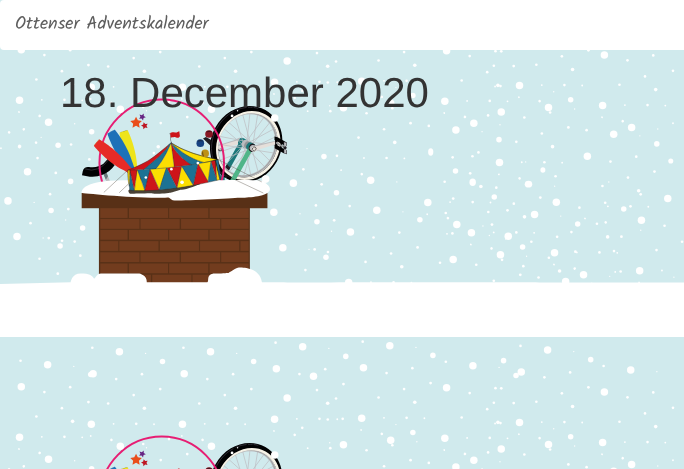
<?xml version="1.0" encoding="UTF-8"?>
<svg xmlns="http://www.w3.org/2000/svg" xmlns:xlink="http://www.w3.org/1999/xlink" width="684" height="469">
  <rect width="100%" height="100%" fill="#ffffff" />
  <image x="0" y="0" width="684" height="469" xlink:href="image1.png" />
  <rect width="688" height="50" rx="4" fill="#ffffff" />
  <text x="15" y="29" style="font-family: Kalam; font-size: 18px; fill: #5e5e5e">Ottenser Adventskalender</text>
  <text x="60" y="107" style="font-family: Liberation Sans; font-size: 42px; fill: #333333">18. December 2020</text>
</svg>
